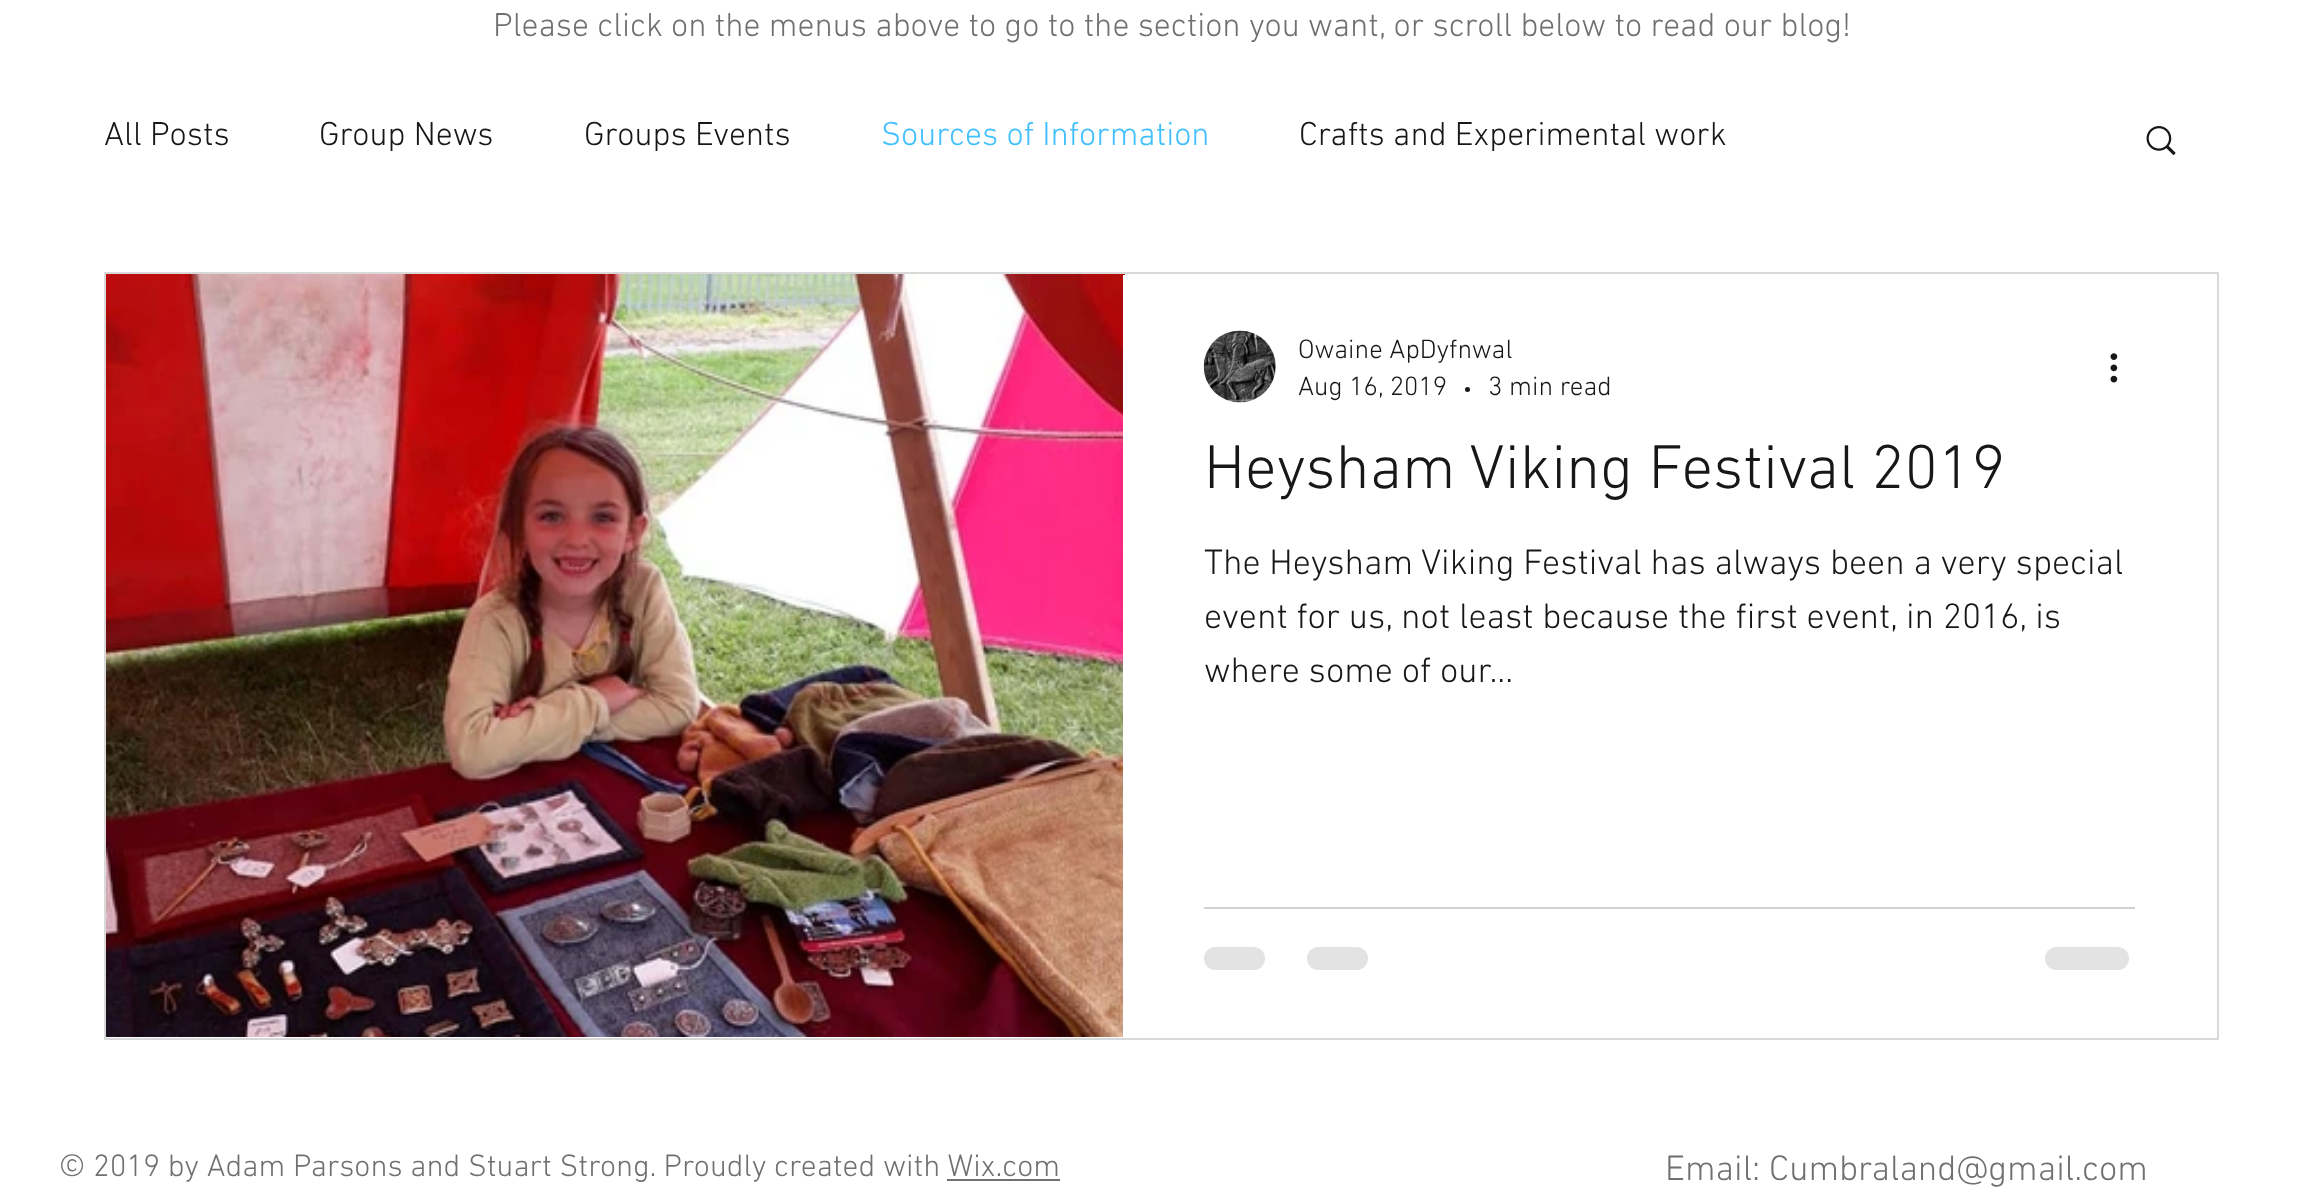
<?xml version="1.0" encoding="UTF-8"?>
<svg xmlns="http://www.w3.org/2000/svg" xmlns:xlink="http://www.w3.org/1999/xlink" width="2320" height="1187">
  <rect width="100%" height="100%" fill="#ffffff" />
  <image x="2146" y="126" width="30" height="29" xlink:href="image1.png" />
  <rect x="105" y="273" width="2113" height="766" fill="none" stroke="#d9d9d9" stroke-width="2" />
  <image x="106" y="274" width="1019" height="763" xlink:href="image2.png" />
  <rect x="1123" y="275" width="2" height="762" fill="#ffffff" />
  <image x="1203" y="330" width="73" height="73" xlink:href="image3.png" />
  <circle cx="1467.5" cy="389.5" r="2.5" fill="#171717" />
  <image x="2110" y="353" width="8" height="30" xlink:href="image4.png" />
  <rect x="1204" y="907" width="931" height="2" fill="#d1d1d1" />
  <rect x="1204" y="947" width="61" height="23" rx="11.5" fill="#e3e3e3" />
  <rect x="1307" y="947" width="61" height="23" rx="11.5" fill="#e3e3e3" />
  <rect x="2045" y="947" width="84" height="23" rx="11.5" fill="#e3e3e3" />
  <rect x="947" y="1179" width="113" height="2" fill="#707070" />
  <text x="493" y="36" style="font-family: 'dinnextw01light'; font-size: 33.75px; font-weight: 300; fill: #707070">Please click on the menus above to go to the section you want, or scroll below to read our blog!</text>
  <text x="104" y="145" style="font-family: 'dinnextw01light'; font-size: 33.75px; font-weight: 300; fill: #171717">All Posts</text>
  <text x="319" y="145" style="font-family: 'dinnextw01light'; font-size: 33.75px; font-weight: 300; fill: #171717">Group News</text>
  <text x="584" y="145" style="font-family: 'dinnextw01light'; font-size: 33.75px; font-weight: 300; fill: #171717">Groups Events</text>
  <text x="881" y="145" style="font-family: 'dinnextw01light'; font-size: 33.75px; font-weight: 300; fill: #41bfff">Sources of Information</text>
  <text x="1299" y="145" style="font-family: 'dinnextw01light'; font-size: 33.75px; font-weight: 300; fill: #171717">Crafts and Experimental work</text>
  <text x="1298" y="358" style="font-family: 'dinnextw01light'; font-size: 27px; font-weight: 300; fill: #171717">Owaine ApDyfnwal</text>
  <text x="1298" y="395" style="font-family: 'dinnextw01light'; font-size: 27px; font-weight: 300; fill: #171717">Aug 16, 2019</text>
  <text x="1488" y="395" style="font-family: 'dinnextw01light'; font-size: 27px; font-weight: 300; fill: #171717">3 min read</text>
  <text x="1204" y="488" style="font-family: 'dinnextw01light'; font-size: 63px; font-weight: 300; fill: #171717">Heysham Viking Festival 2019</text>
  <text x="1204" y="574" style="font-family: 'dinnextw01light'; font-size: 36px; font-weight: 300; fill: #171717">The Heysham Viking Festival has always been a very special</text>
  <text x="1204" y="628" style="font-family: 'dinnextw01light'; font-size: 36px; font-weight: 300; fill: #171717">event for us, not least because the first event, in 2016, is</text>
  <text x="1204" y="682" style="font-family: 'dinnextw01light'; font-size: 36px; font-weight: 300; fill: #171717">where some of our...</text>
  <text x="59" y="1176" style="font-family: 'dinnextw01light'; font-size: 31.5px; font-weight: 300; fill: #707070">© 2019 by Adam Parsons and Stuart Strong. Proudly created with Wix.com</text>
  <text x="1665" y="1180" style="font-family: 'dinnextw01light'; font-size: 36px; font-weight: 300; fill: #707070">Email: Cumbraland@gmail.com</text>
</svg>
